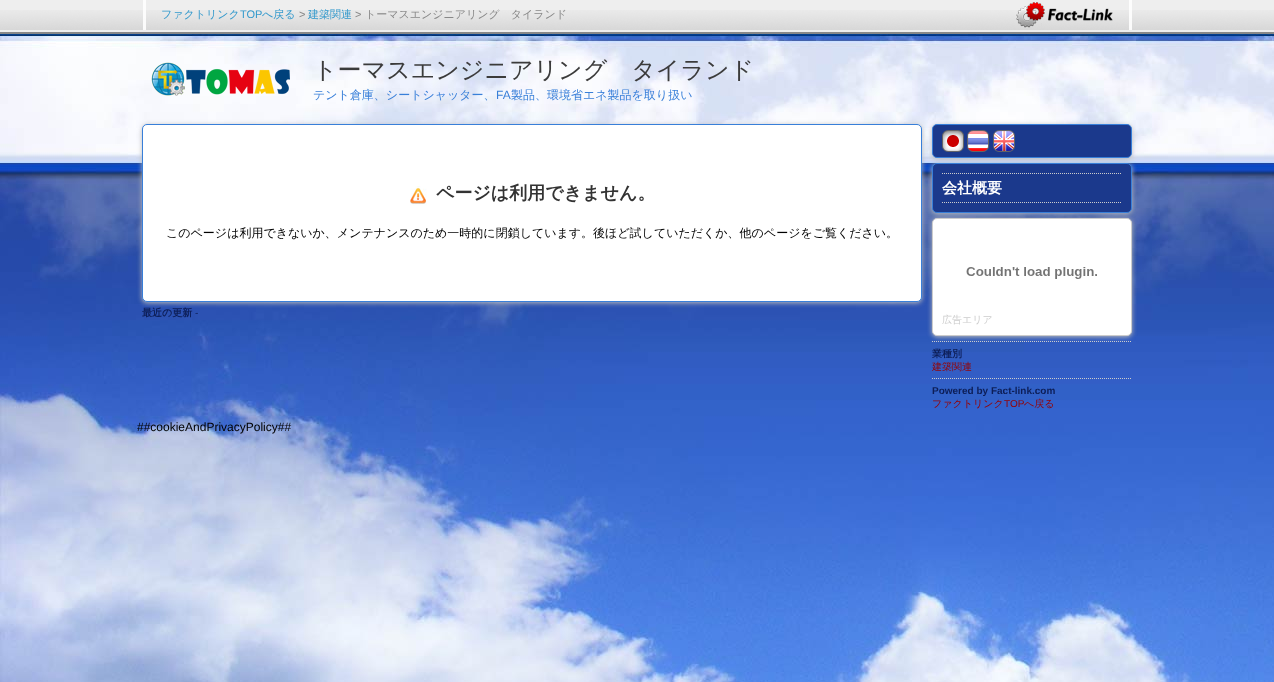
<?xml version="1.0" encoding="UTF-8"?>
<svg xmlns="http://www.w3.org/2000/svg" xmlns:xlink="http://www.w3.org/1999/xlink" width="1274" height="682">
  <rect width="100%" height="100%" fill="#ffffff" />
  <image x="0" y="34" width="1274" height="648" xlink:href="image1.png" />
  <rect width="1274" height="32" fill="#eeeeee" />
  <image x="0" y="10" width="1274" height="20" xlink:href="image2.png" />
  <rect y="32" width="1274" height="2" fill="#888888" />
  <rect x="143" width="3" height="30" fill="#fefefe" fill-opacity="0.9" />
  <image x="1016" y="2" width="97" height="26" xlink:href="image3.png" />
  <rect x="1129" width="3" height="30" fill="#fefefe" fill-opacity="0.9" />
  <image x="151" y="62" width="139" height="34" xlink:href="image4.png" />
  <rect x="142" y="125" width="780" height="178" rx="5" fill="#bbbbbb" filter="blur(2.5px)" />
  <rect x="142.5" y="124.5" width="779" height="177" rx="4.5" fill="#ffffff" stroke="#387fd9" />
  <image x="410" y="186" width="17" height="20" xlink:href="image5.png" />
  <rect x="932" y="125" width="200" height="34" rx="5" fill="#bbbbbb" filter="blur(2.5px)" />
  <rect x="932.5" y="124.5" width="199" height="33" rx="4.5" fill="#1b398c" stroke="#387fd9" />
  <image x="942" y="130" width="22" height="22" xlink:href="image6.png" />
  <image x="967" y="130" width="22" height="22" xlink:href="image7.png" />
  <image x="993" y="130" width="22" height="22" xlink:href="image8.png" />
  <rect x="932" y="164" width="200" height="50" rx="5" fill="#bbbbbb" filter="blur(2.5px)" />
  <rect x="932.5" y="163.5" width="199" height="49" rx="4.5" fill="#1b398c" stroke="#387fd9" />
  <path d="M 942 173.5 h 180" fill="none" stroke="#cccccc" stroke-dasharray="1 1" />
  <path d="M 942 202.5 h 180" fill="none" stroke="#cccccc" stroke-dasharray="1 1" />
  <rect x="932" y="219" width="200" height="118" rx="5" fill="#bbbbbb" filter="blur(2.5px)" />
  <rect x="932.5" y="218.5" width="199" height="117" rx="4.5" fill="#ffffff" stroke="#cccccc" />
  <image x="966" y="267" width="131" height="12" xlink:href="image9.png" />
  <path d="M 932 341.5 h 200" fill="none" stroke="#cccccc" stroke-dasharray="1 1" />
  <path d="M 932 378.5 h 200" fill="none" stroke="#cccccc" stroke-dasharray="1 1" />
  <text x="161" y="18" style="font-family: WenQuanYi Zen Hei; font-size: 11px; font-weight: 500; fill: #3399cc">ファクトリンク</text>
  <text x="240" y="18" style="font-family: Liberation Sans; font-size: 11px; fill: #3399cc">TOP</text>
  <text x="262" y="18" style="font-family: WenQuanYi Zen Hei; font-size: 11px; font-weight: 500; fill: #3399cc">へ戻る</text>
  <text x="299" y="18" style="font-family: Liberation Sans; font-size: 11px; fill: #888888">&gt;</text>
  <text x="308" y="18" style="font-family: WenQuanYi Zen Hei; font-size: 11px; font-weight: 500; fill: #3399cc">建築関連</text>
  <text x="355" y="18" style="font-family: Liberation Sans; font-size: 11px; fill: #888888">&gt;</text>
  <text x="365" y="18" style="font-family: WenQuanYi Zen Hei; font-size: 11px; font-weight: 500; fill: #888888">トーマスエンジニアリング　タイランド</text>
  <text x="313" y="78" style="font-family: WenQuanYi Zen Hei; font-size: 24px; font-weight: 500; fill: #3b3b3b">トーマスエンジニアリング　タイランド</text>
  <text x="313" y="99" style="font-family: WenQuanYi Zen Hei; font-size: 12px; font-weight: 500; fill: #387fd9">テント倉庫、シートシャッター、</text>
  <text x="496" y="99" style="font-family: Liberation Sans; font-size: 12px; fill: #387fd9">FA</text>
  <text x="511" y="99" style="font-family: WenQuanYi Zen Hei; font-size: 12px; font-weight: 500; fill: #387fd9">製品、環境省エネ製品を取り扱い</text>
  <text x="436" y="199" style="font-family: WenQuanYi Zen Hei; font-size: 18px; font-weight: bold; fill: #333333">ページは利用できません。</text>
  <text x="166" y="237" style="font-family: WenQuanYi Zen Hei; font-size: 12px; font-weight: 500; fill: #000000">このページは利用できないか、メンテナンスのため一時的に閉鎖しています。後ほど試していただくか、他のページをご覧ください。</text>
  <text x="142" y="316" style="font-family: WenQuanYi Zen Hei; font-size: 10px; font-weight: bold; fill: #0d1e57">最近の更新</text>
  <text x="195" y="316" style="font-family: Liberation Sans; font-size: 10px; fill: #0d1e57">-</text>
  <text x="942" y="193" style="font-family: WenQuanYi Zen Hei; font-size: 15px; font-weight: bold; fill: #ffffff">会社概要</text>
  <text x="942" y="323" style="font-family: WenQuanYi Zen Hei; font-size: 10px; font-weight: 500; fill: #cccccc">広告エリア</text>
  <text x="932" y="357" style="font-family: WenQuanYi Zen Hei; font-size: 10px; font-weight: bold; fill: #0d1e57">業種別</text>
  <text x="932" y="370" style="font-family: WenQuanYi Zen Hei; font-size: 10px; font-weight: 500; fill: #960000">建築関連</text>
  <text x="932" y="394" style="font-family: Liberation Sans; font-size: 10px; font-weight: bold; fill: #0d1e57">Powered by Fact-link.com</text>
  <text x="932" y="407" style="font-family: WenQuanYi Zen Hei; font-size: 10px; font-weight: 500; fill: #960000">ファクトリンク</text>
  <text x="1004" y="407" style="font-family: Liberation Sans; font-size: 10px; fill: #960000">TOP</text>
  <text x="1024" y="407" style="font-family: WenQuanYi Zen Hei; font-size: 10px; font-weight: 500; fill: #960000">へ戻る</text>
  <text x="137" y="431" style="font-family: Liberation Sans; font-size: 12px; fill: #000000">##cookieAndPrivacyPolicy##</text>
</svg>
